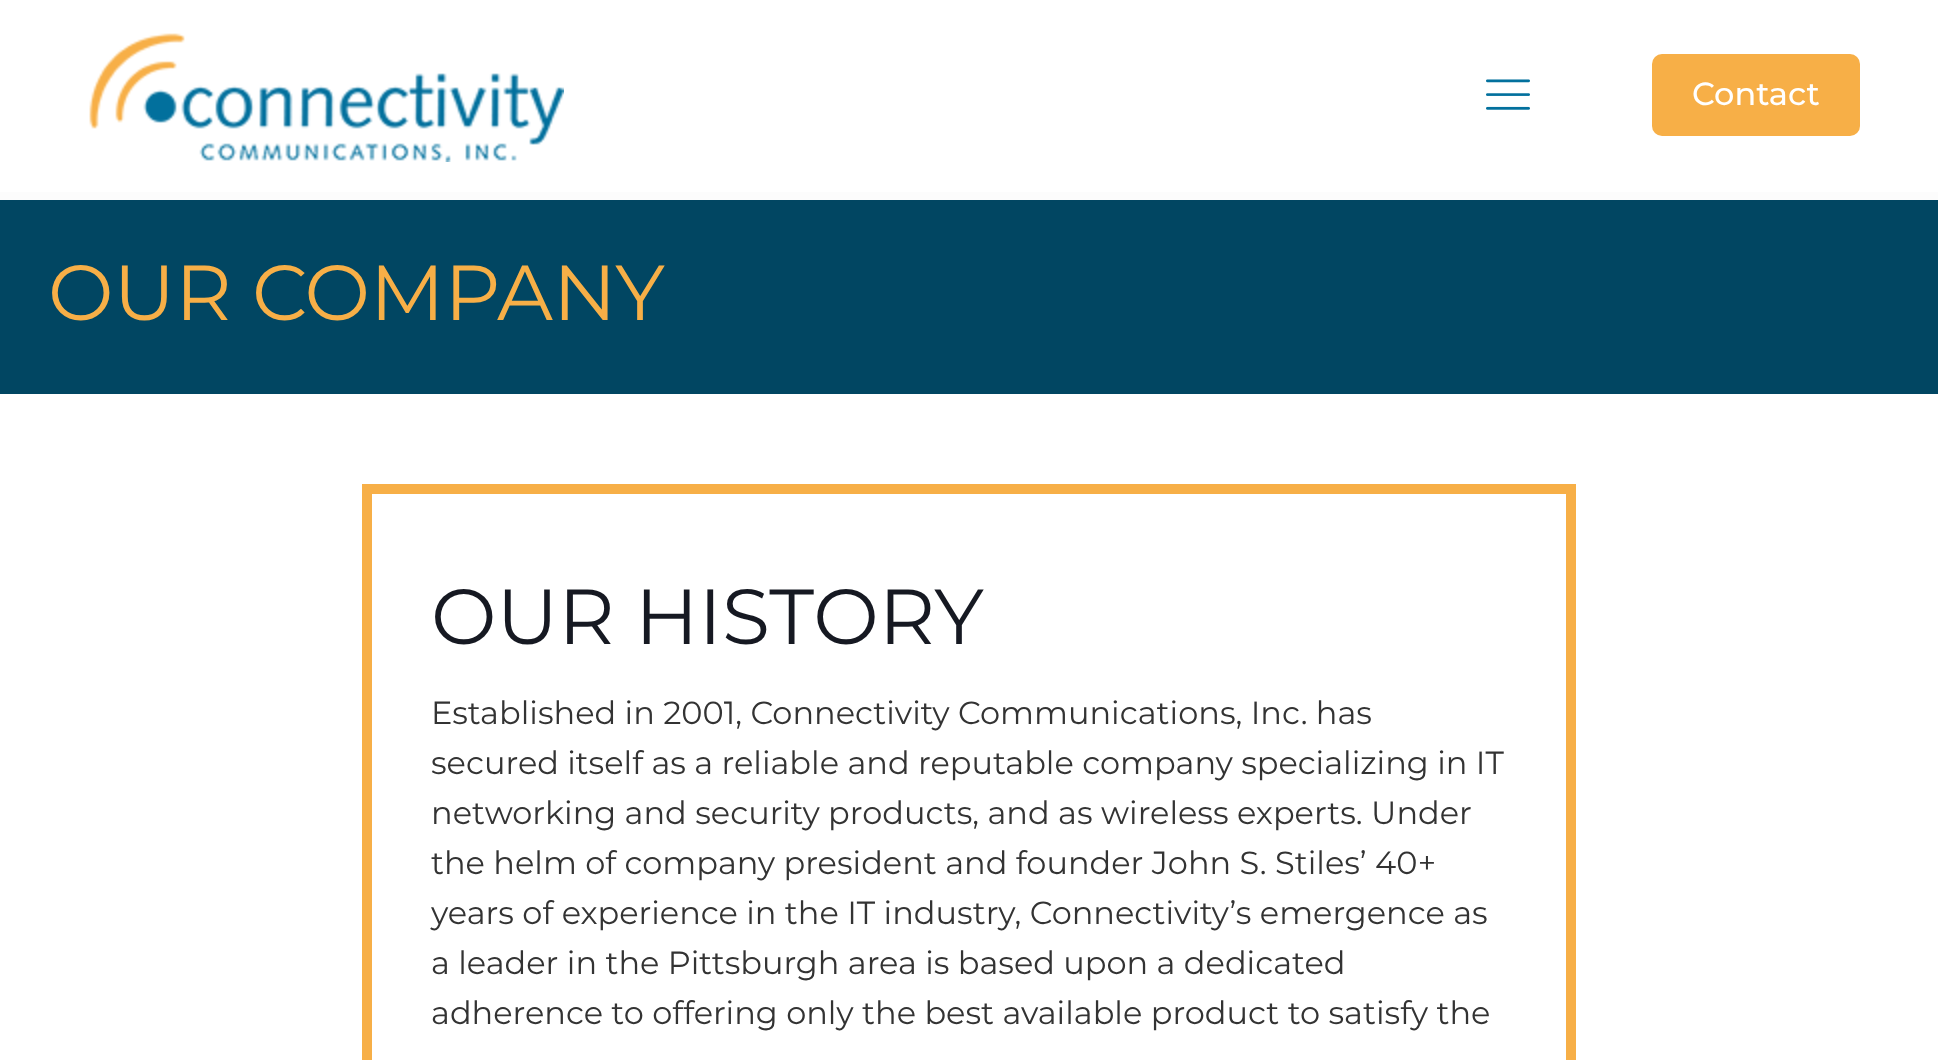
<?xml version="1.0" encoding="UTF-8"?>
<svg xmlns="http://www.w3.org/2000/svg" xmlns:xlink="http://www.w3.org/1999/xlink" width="1938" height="1060">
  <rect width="100%" height="100%" fill="#fcfcfc" />
  <rect width="1938" height="192" fill="#ffffff" />
  <image x="89" y="33" width="475" height="129" xlink:href="image1.png" />
  <image x="1486" y="79" width="44" height="31" xlink:href="image2.png" />
  <rect x="1652" y="54" width="208" height="82" rx="10" fill="#f7af47" />
  <rect y="200" width="1938" height="194" fill="#014662" />
  <rect y="394" width="1938" height="666" fill="#ffffff" />
  <rect x="367" y="489" width="1204" height="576" fill="none" stroke="#f7af47" stroke-width="10" />
  <text x="1692" y="105" style="font-family: Montserrat; font-size: 32px; font-weight: 500; fill: #ffffff">Contact</text>
  <text x="48" y="320" style="font-family: Montserrat; font-size: 78px; fill: #f7af47">OUR COMPANY</text>
  <text x="431" y="644" style="font-family: Montserrat; font-size: 78px; fill: #161922">OUR HISTORY</text>
  <text x="431" y="724" style="font-family: Montserrat; font-size: 32px; fill: #333333">Established in 2001, Connectivity Communications, Inc. has</text>
  <text x="431" y="774" style="font-family: Montserrat; font-size: 32px; fill: #333333">secured itself as a reliable and reputable company specializing in IT</text>
  <text x="431" y="824" style="font-family: Montserrat; font-size: 32px; fill: #333333">networking and security products, and as wireless experts. Under</text>
  <text x="431" y="874" style="font-family: Montserrat; font-size: 32px; fill: #333333">the helm of company president and founder John S. Stiles’ 40+</text>
  <text x="431" y="924" style="font-family: Montserrat; font-size: 32px; fill: #333333">years of experience in the IT industry, Connectivity’s emergence as</text>
  <text x="431" y="974" style="font-family: Montserrat; font-size: 32px; fill: #333333">a leader in the Pittsburgh area is based upon a dedicated</text>
  <text x="431" y="1024" style="font-family: Montserrat; font-size: 32px; fill: #333333">adherence to offering only the best available product to satisfy the</text>
</svg>
